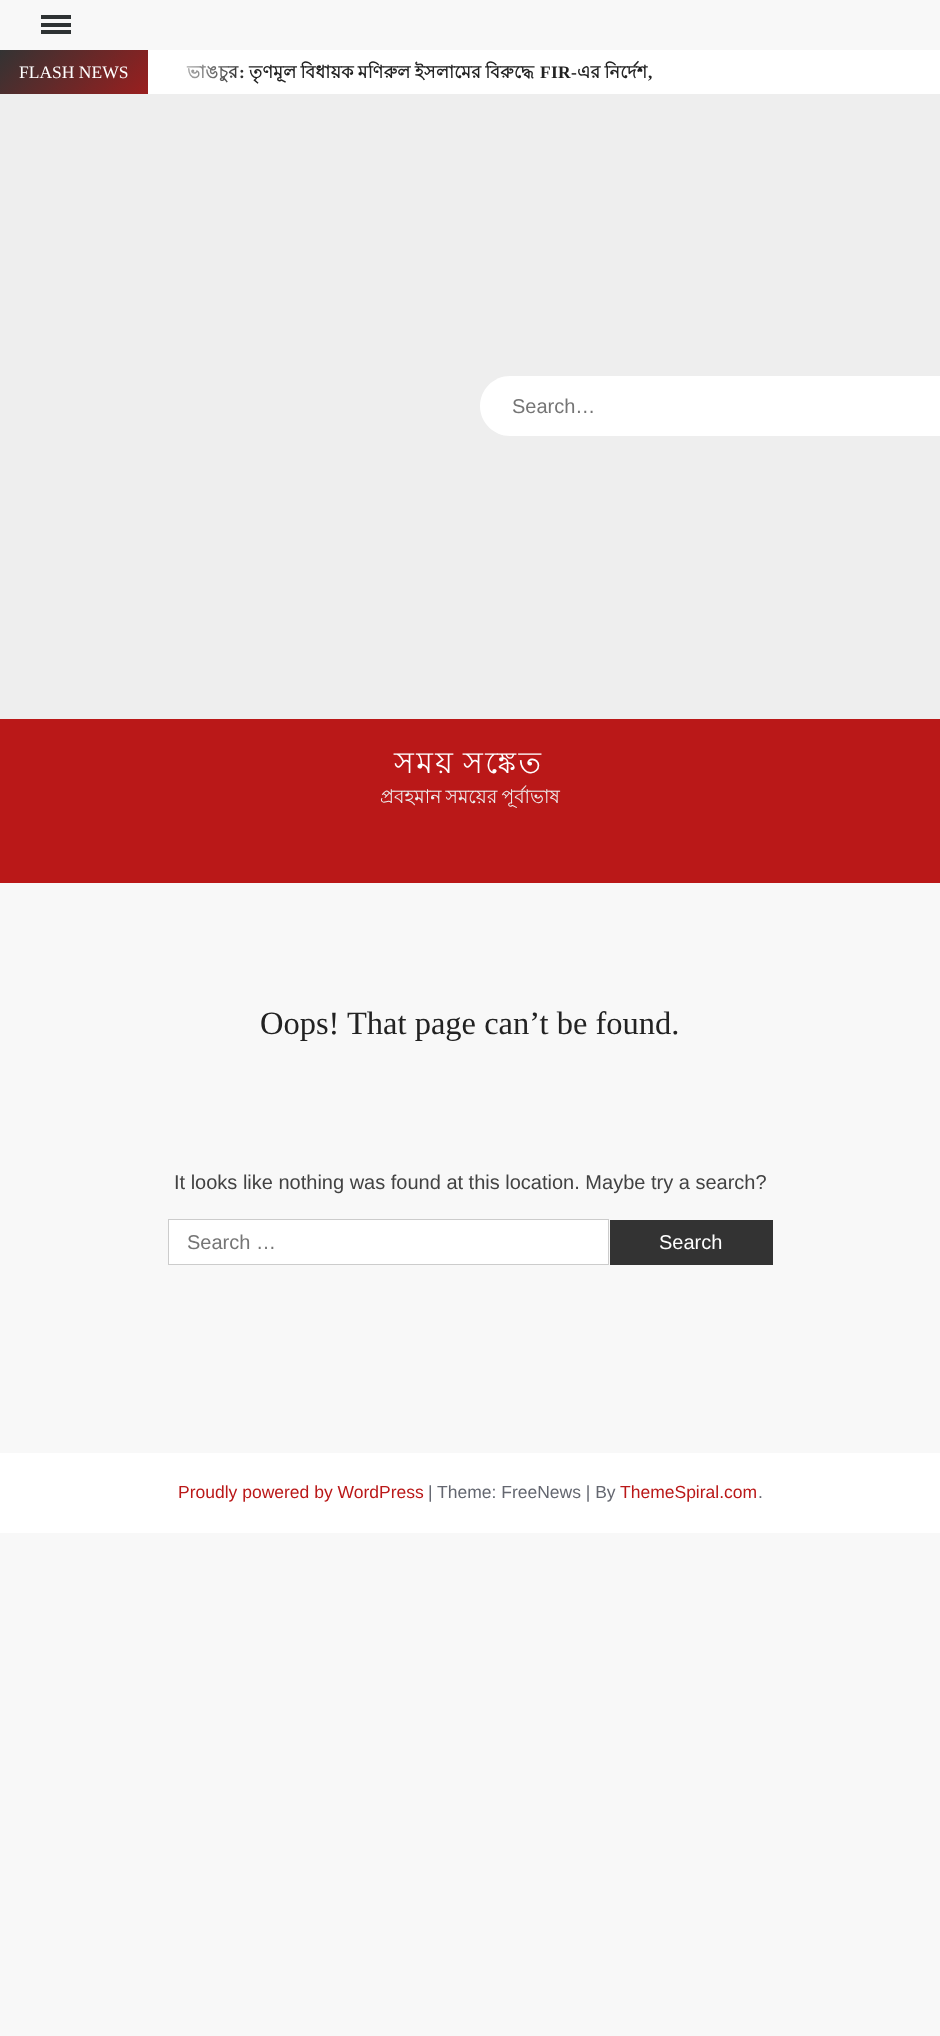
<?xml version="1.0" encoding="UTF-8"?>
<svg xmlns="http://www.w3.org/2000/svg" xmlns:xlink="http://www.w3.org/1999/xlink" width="940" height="2036">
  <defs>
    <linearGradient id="g1" gradientUnits="userSpaceOnUse" x1="486" y1="329" x2="104" y2="-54"><stop offset="0" stop-color="#ba1818" /><stop offset="0.33" stop-color="#eeeeee" /><stop offset="0.67" stop-color="#ba1818" /><stop offset="1" stop-color="#333333" /></linearGradient>
    <linearGradient id="g2" gradientUnits="userSpaceOnUse" x1="148" y1="72" x2="248" y2="72"><stop offset="0" stop-color="#ffffff" /><stop offset="1" stop-color="#ffffff" stop-opacity="0" /></linearGradient>
  </defs>
  <rect width="100%" height="100%" fill="#f8f8f8" />
  <rect x="41" y="23" width="30" height="4" fill="#2e3233" />
  <rect x="41" y="15" width="30" height="4" fill="#2e3233" />
  <rect x="41" y="30" width="30" height="4" fill="#2e3233" />
  <rect x="149" y="50" width="791" height="44" fill="#ffffff" />
  <rect y="50" width="148" height="44" fill="url(#g1)" />
  <rect y="94" width="940" height="625" fill="#eeeeee" />
  <path d="M 510 376 h 430 v 60 h -430 c -16.5 0 -30 -13.5 -30 -30 c 0 -16.5 13.5 -30 30 -30 z" fill="#ffffff" />
  <rect y="719" width="940" height="164" fill="#ba1818" />
  <rect x="168.5" y="1219.5" width="440" height="45" fill="#ffffff" stroke="#cccccc" />
  <rect x="610" y="1220" width="163" height="45" fill="#333333" />
  <rect y="1453" width="940" height="80" fill="#ffffff" />
  <text x="19" y="78" style="font-family: Liberation Serif; font-size: 17.5px; fill: #ffffff">FLASH NEWS</text>
  <text x="187" y="78" word-spacing="-1" style="font-family: Lohit Bengali; font-size: 17.5px; font-weight: bold; letter-spacing: 0.25px; fill: #222222">ভাঙচুর</text>
  <text x="540" y="78" style="font-family: Liberation Serif; font-size: 17.5px; font-weight: bold; letter-spacing: 0.25px; fill: #222222">FIR-</text>
  <text x="577" y="78" word-spacing="-1" style="font-family: Lohit Bengali; font-size: 17.5px; font-weight: bold; letter-spacing: 0.25px; fill: #222222">এর নির্দেশ</text>
  <text x="239" y="78" style="font-family: Liberation Serif; font-size: 17.5px; font-weight: bold; letter-spacing: 0.25px; fill: #222222">:</text>
  <text x="249" y="78" word-spacing="-1" style="font-family: Lohit Bengali; font-size: 17.5px; font-weight: bold; letter-spacing: 0.25px; fill: #222222">তৃণমূল বিধায়ক মণিরুল ইসলামের বিরুদ্ধে</text>
  <rect x="148" y="50" width="96" height="44" fill="url(#g2)" />
  <text x="648" y="78" style="font-family: Liberation Serif; font-size: 17.5px; font-weight: bold; letter-spacing: 0.25px; fill: #222222">,</text>
  <text x="512" y="413" style="font-family: Liberation Sans; font-size: 20px; fill: #757575">Search…</text>
  <text x="394" y="773" word-spacing="-3" style="font-family: Lohit Bengali; font-size: 30px; letter-spacing: 2.4px; fill: #ffffff">সময় সঙ্কেত</text>
  <text x="380" y="803" word-spacing="-1" style="font-family: Lohit Bengali; font-size: 18.75px; fill: #eeeeee">প্রবহমান সময়ের পূর্বাভাষ</text>
  <text x="260" y="1034" style="font-family: Liberation Serif; font-size: 32.5px; fill: #222222">Oops! That page can’t be found.</text>
  <text x="174" y="1189" style="font-family: Liberation Sans; font-size: 20px; fill: #424242">It looks like nothing was found at this location. Maybe try a search?</text>
  <text x="187" y="1249" style="font-family: Liberation Sans; font-size: 20px; fill: #757575">Search …</text>
  <text x="659" y="1249" style="font-family: Liberation Sans; font-size: 20px; fill: #ffffff">Search</text>
  <text x="178" y="1498" style="font-family: Liberation Sans; font-size: 17.5px; fill: #ba1818">Proudly powered by WordPress</text>
  <text x="428" y="1498" style="font-family: Liberation Sans; font-size: 17.5px; fill: #646770">|</text>
  <text x="437" y="1498" style="font-family: Liberation Sans; font-size: 17.5px; fill: #646770">Theme: FreeNews | By</text>
  <text x="620" y="1498" style="font-family: Liberation Sans; font-size: 17.5px; fill: #ba1818">ThemeSpiral.com</text>
  <text x="758" y="1498" style="font-family: Liberation Sans; font-size: 17.5px; fill: #646770">.</text>
</svg>
